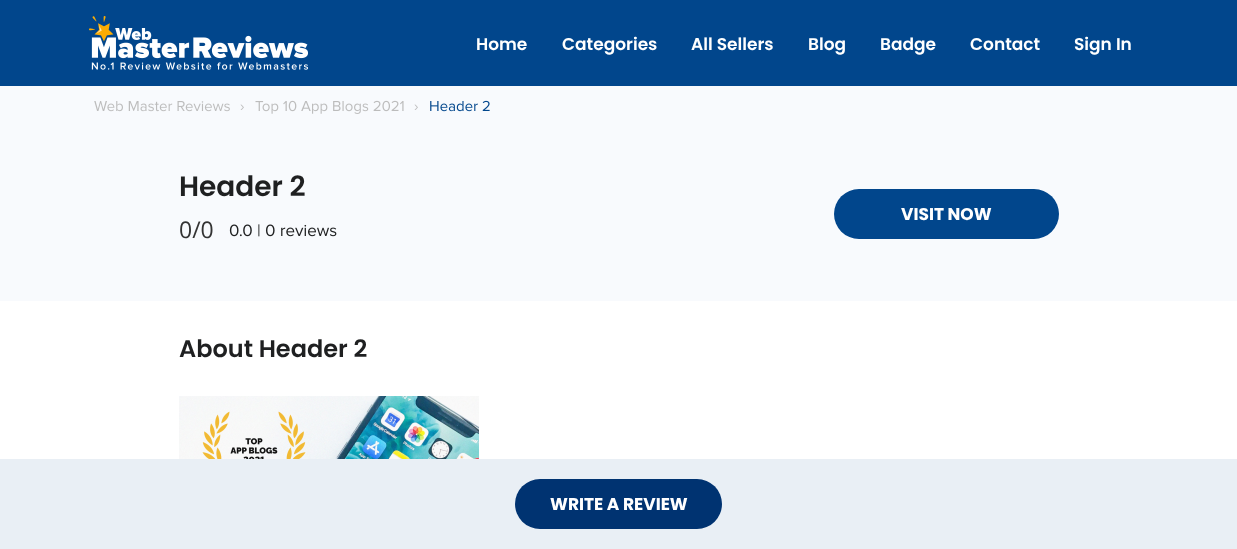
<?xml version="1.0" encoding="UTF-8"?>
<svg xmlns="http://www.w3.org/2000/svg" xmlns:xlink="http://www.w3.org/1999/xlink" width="1237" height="549">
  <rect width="100%" height="100%" fill="#ffffff" />
  <rect width="1237" height="86" fill="#01468c" />
  <image x="89" y="16" width="219" height="54" xlink:href="image1.png" />
  <rect y="86" width="1237" height="215" fill="#f8fafd" />
  <image x="94" y="101" width="136" height="11" xlink:href="image2.png" />
  <image x="240" y="104" width="4" height="6" xlink:href="image3.png" />
  <image x="255" y="100" width="149" height="14" xlink:href="image4.png" />
  <image x="414" y="104" width="4" height="6" xlink:href="image3.png" />
  <image x="430" y="100" width="60" height="12" xlink:href="image5.png" />
  <image x="229" y="224" width="108" height="13" xlink:href="image6.png" />
  <rect x="834" y="189" width="225" height="50" rx="25" fill="#01468c" />
  <image x="179" y="396" width="300" height="63" xlink:href="image7.png" />
  <rect y="459" width="1237" height="90" fill="#e9eff5" />
  <rect x="515" y="479" width="207" height="50" rx="25" fill="#003371" />
  <text x="476" y="50" style="font-family: Poppins; font-size: 17px; font-weight: 600; fill: #ffffff">Home</text>
  <text x="562" y="50" style="font-family: Poppins; font-size: 17px; font-weight: 600; fill: #ffffff">Categories</text>
  <text x="691" y="50" style="font-family: Poppins; font-size: 17px; font-weight: 600; fill: #ffffff">All Sellers</text>
  <text x="808" y="50" style="font-family: Poppins; font-size: 17px; font-weight: 600; fill: #ffffff">Blog</text>
  <text x="880" y="50" style="font-family: Poppins; font-size: 17px; font-weight: 600; fill: #ffffff">Badge</text>
  <text x="970" y="50" style="font-family: Poppins; font-size: 17px; font-weight: 600; fill: #ffffff">Contact</text>
  <text x="1074" y="50" style="font-family: Poppins; font-size: 17px; font-weight: 600; fill: #ffffff">Sign In</text>
  <text x="179" y="196" style="font-family: Poppins; font-size: 28px; font-weight: 600; fill: #1f2021">Header 2</text>
  <text x="179" y="238" style="font-family: Open Sans; font-size: 23px; fill: #333333">0/0</text>
  <text x="901" y="220" style="font-family: Poppins; font-size: 17px; font-weight: bold; fill: #ffffff">VISIT NOW</text>
  <text x="179" y="357" style="font-family: Poppins; font-size: 24px; font-weight: 600; fill: #1f2021">About Header 2</text>
  <text x="550" y="510" style="font-family: Poppins; font-size: 17px; font-weight: bold; fill: #ffffff">WRITE A REVIEW</text>
</svg>
